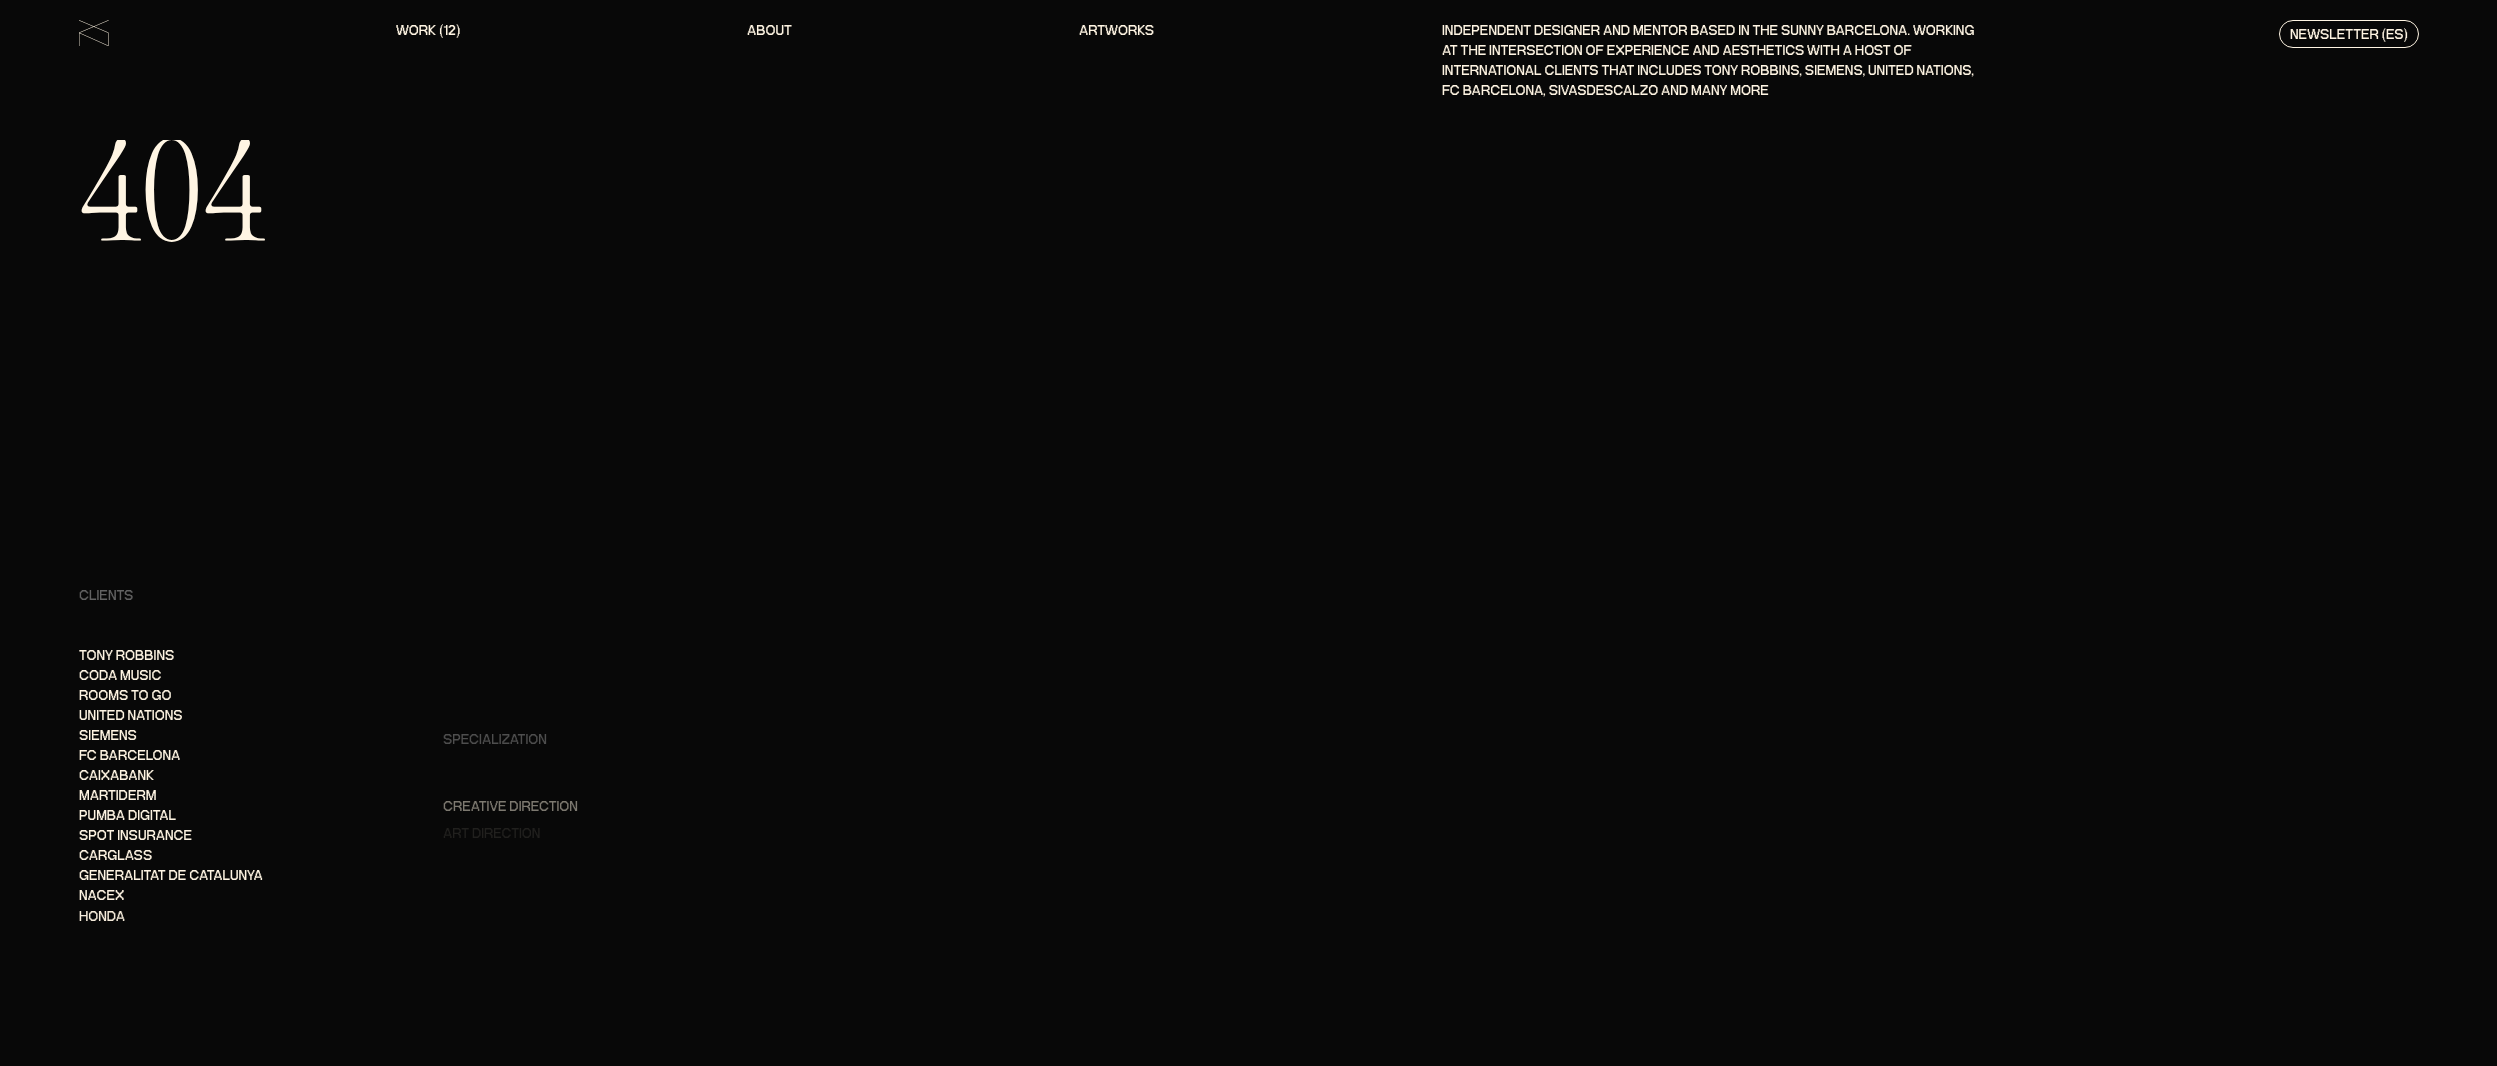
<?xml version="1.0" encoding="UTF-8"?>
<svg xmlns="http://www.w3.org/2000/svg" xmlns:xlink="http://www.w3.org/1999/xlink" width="2497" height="1066">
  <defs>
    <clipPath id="clip1"><rect x="79" y="140" width="2340" height="125" /></clipPath>
  </defs>
  <rect width="100%" height="100%" fill="#080808" />
  <image x="79" y="20" width="30" height="26" xlink:href="image1.png" />
  <rect x="2279.5" y="20.5" width="139" height="27" rx="13.5" fill="none" stroke="#fff5e3" />
  <text x="396" y="35" style="font-family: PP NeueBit; font-size: 20px; font-weight: bold; fill: #fff5e3">WORK (12)</text>
  <text x="747" y="35" style="font-family: PP NeueBit; font-size: 20px; font-weight: bold; fill: #fff5e3">ABOUT</text>
  <text x="1079" y="35" style="font-family: PP NeueBit; font-size: 20px; font-weight: bold; fill: #fff5e3">ARTWORKS</text>
  <text x="1442" y="35" style="font-family: PP NeueBit; font-size: 20px; font-weight: bold; fill: #fff5e3">INDEPENDENT DESIGNER AND MENTOR BASED IN THE SUNNY BARCELONA. WORKING</text>
  <text x="1442" y="55" style="font-family: PP NeueBit; font-size: 20px; font-weight: bold; fill: #fff5e3">AT THE INTERSECTION OF EXPERIENCE AND AESTHETICS WITH A HOST OF</text>
  <text x="1442" y="75" style="font-family: PP NeueBit; font-size: 20px; font-weight: bold; fill: #fff5e3">INTERNATIONAL CLIENTS THAT INCLUDES TONY ROBBINS, SIEMENS, UNITED NATIONS,</text>
  <text x="1442" y="95" style="font-family: PP NeueBit; font-size: 20px; font-weight: bold; fill: #fff5e3">FC BARCELONA, SIVASDESCALZO AND MANY MORE</text>
  <text x="2290" y="39" style="font-family: PP NeueBit; font-size: 20px; font-weight: bold; fill: #fff5e3">NEWSLETTER (ES)</text>
  <g clip-path="url(#clip1)">
    <text x="79" y="240" style="font-family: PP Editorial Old; font-size: 125px; font-weight: 200; letter-spacing: -1px; fill: #fff5e3">404</text>
  </g>
  <text x="79" y="600" style="font-family: PP NeueBit; font-size: 20px; font-weight: bold; fill: #626262">CLIENTS</text>
  <text x="79" y="660" style="font-family: PP NeueBit; font-size: 20px; font-weight: bold; fill: #fff5e3">TONY ROBBINS</text>
  <text x="79" y="680" style="font-family: PP NeueBit; font-size: 20px; font-weight: bold; fill: #fff5e3">CODA MUSIC</text>
  <text x="79" y="700" style="font-family: PP NeueBit; font-size: 20px; font-weight: bold; fill: #fff5e3">ROOMS TO GO</text>
  <text x="79" y="720" style="font-family: PP NeueBit; font-size: 20px; font-weight: bold; fill: #fff5e3">UNITED NATIONS</text>
  <text x="79" y="740" style="font-family: PP NeueBit; font-size: 20px; font-weight: bold; fill: #fff5e3">SIEMENS</text>
  <text x="79" y="760" style="font-family: PP NeueBit; font-size: 20px; font-weight: bold; fill: #fff5e3">FC BARCELONA</text>
  <text x="79" y="780" style="font-family: PP NeueBit; font-size: 20px; font-weight: bold; fill: #fff5e3">CAIXABANK</text>
  <text x="79" y="800" style="font-family: PP NeueBit; font-size: 20px; font-weight: bold; fill: #fff5e3">MARTIDERM</text>
  <text x="79" y="820" style="font-family: PP NeueBit; font-size: 20px; font-weight: bold; fill: #fff5e3">PUMBA DIGITAL</text>
  <text x="79" y="840" style="font-family: PP NeueBit; font-size: 20px; font-weight: bold; fill: #fff5e3">SPOT INSURANCE</text>
  <text x="79" y="860" style="font-family: PP NeueBit; font-size: 20px; font-weight: bold; fill: #fff5e3">CARGLASS</text>
  <text x="79" y="880" style="font-family: PP NeueBit; font-size: 20px; font-weight: bold; fill: #fff5e3">GENERALITAT DE CATALUNYA</text>
  <text x="79" y="900" style="font-family: PP NeueBit; font-size: 20px; font-weight: bold; fill: #fff5e3">NACEX</text>
  <text x="79" y="921" style="font-family: PP NeueBit; font-size: 20px; font-weight: bold; fill: #f5ebda">HONDA</text>
  <text x="443" y="744" style="font-family: PP NeueBit; font-size: 20px; font-weight: bold; fill: #4e4e4e">SPECIALIZATION</text>
  <text x="443" y="811" style="font-family: PP NeueBit; font-size: 20px; font-weight: bold; fill: #7d7970">CREATIVE DIRECTION</text>
  <text x="443" y="838" style="font-family: PP NeueBit; font-size: 20px; font-weight: bold; fill: #21201e">ART DIRECTION</text>
</svg>
